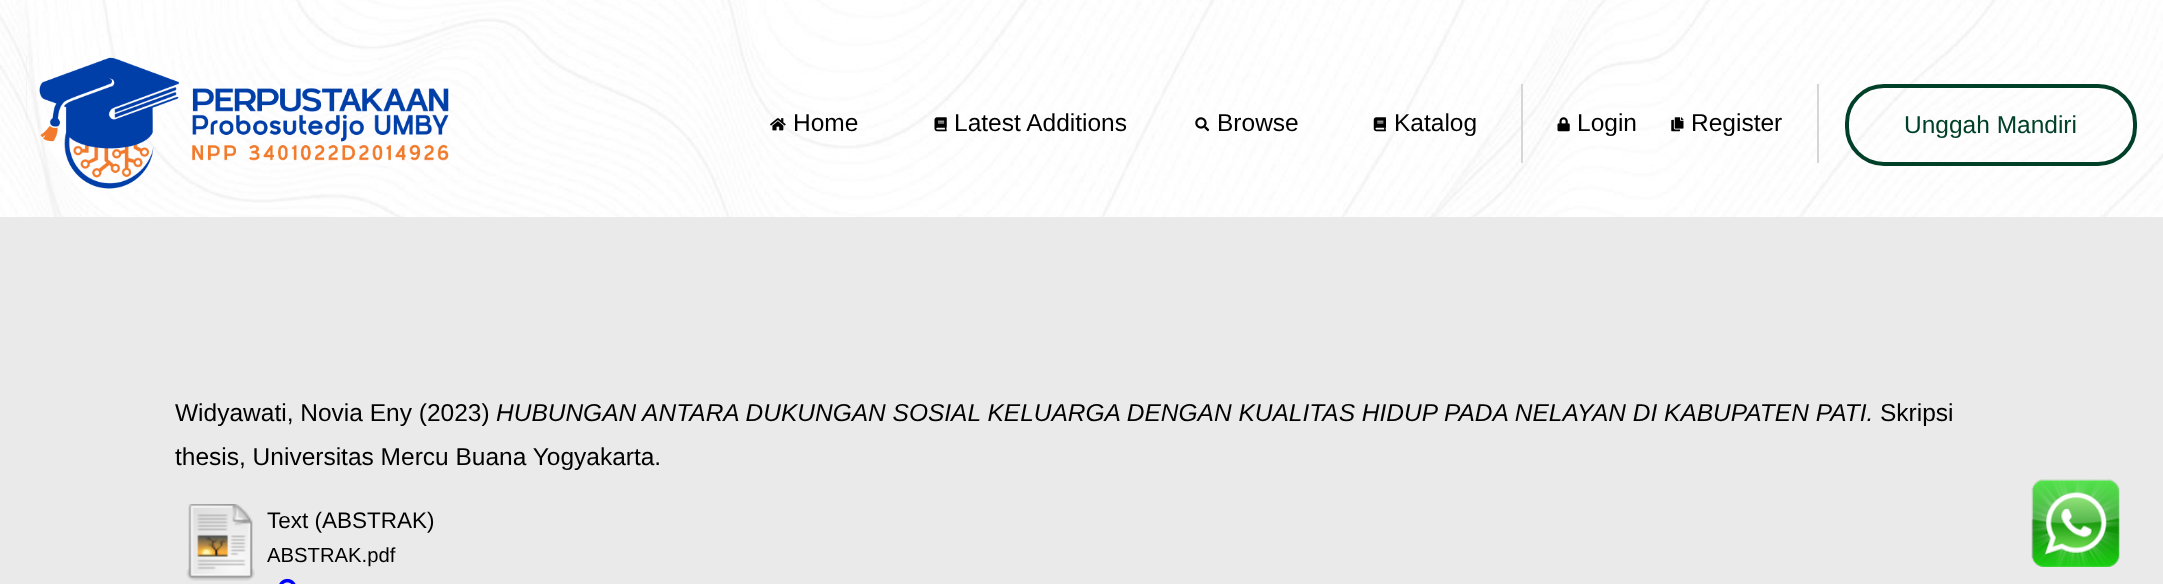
<?xml version="1.0" encoding="UTF-8"?>
<svg xmlns="http://www.w3.org/2000/svg" xmlns:xlink="http://www.w3.org/1999/xlink" width="2163" height="584">
  <rect width="100%" height="100%" fill="#eaeaea" />
  <image x="0" y="0" width="2163" height="217" xlink:href="image1.png" />
  <image x="26" y="56" width="423" height="133" xlink:href="image2.png" />
  <image x="770" y="118" width="16" height="13" xlink:href="image3.png" />
  <image x="934" y="117" width="13" height="15" xlink:href="image4.png" />
  <image x="1195" y="117" width="15" height="15" xlink:href="image5.png" />
  <image x="1373" y="117" width="13" height="15" xlink:href="image6.png" />
  <rect x="1817" y="84" width="2" height="79" fill="#d6d6d6" />
  <rect x="1521" y="84" width="2" height="79" fill="#d6d6d6" />
  <image x="1557" y="117" width="13" height="15" xlink:href="image7.png" />
  <image x="1671" y="117" width="13" height="15" xlink:href="image8.png" />
  <rect x="1847" y="86" width="288" height="78" rx="37" fill="none" stroke="#004029" stroke-width="4" />
  <image x="186" y="504" width="69" height="77" xlink:href="image9.png" />
  <image x="279" y="578" width="17" height="6" xlink:href="image10.png" />
  <image x="2031" y="479" width="89" height="88" xlink:href="image11.png" />
  <text x="793" y="131" style="font-family: Liberation Sans; font-size: 24.5px; fill: #000000">Home</text>
  <text x="954" y="131" style="font-family: Liberation Sans; font-size: 24.5px; fill: #000000">Latest Additions</text>
  <text x="1217" y="131" style="font-family: Liberation Sans; font-size: 24.5px; fill: #000000">Browse</text>
  <text x="1394" y="131" style="font-family: Liberation Sans; font-size: 24.5px; fill: #000000">Katalog</text>
  <text x="1577" y="131" style="font-family: Liberation Sans; font-size: 24.5px; fill: #000000">Login</text>
  <text x="1691" y="131" style="font-family: Liberation Sans; font-size: 24.5px; fill: #000000">Register</text>
  <text x="1904" y="133" style="font-family: Liberation Sans; font-size: 24.5px; fill: #004029">Unggah Mandiri</text>
  <text x="175" y="421" style="font-family: Liberation Sans; font-size: 24.5px; fill: #000000">Widyawati, Novia Eny (2023)</text>
  <text x="496" y="421" style="font-family: Liberation Sans; font-size: 24.5px; font-style: italic; fill: #000000">HUBUNGAN ANTARA DUKUNGAN SOSIAL KELUARGA DENGAN KUALITAS HIDUP PADA NELAYAN DI KABUPATEN PATI.</text>
  <text x="1880" y="421" style="font-family: Liberation Sans; font-size: 24.5px; fill: #000000">Skripsi</text>
  <text x="175" y="465" style="font-family: Liberation Sans; font-size: 24.5px; fill: #000000">thesis, Universitas Mercu Buana Yogyakarta.</text>
  <text x="267" y="528" style="font-family: Liberation Sans; font-size: 22.5px; fill: #000000">Text (ABSTRAK)</text>
  <text x="267" y="562" style="font-family: Liberation Sans; font-size: 20.25px; fill: #000000">ABSTRAK.pdf</text>
</svg>
